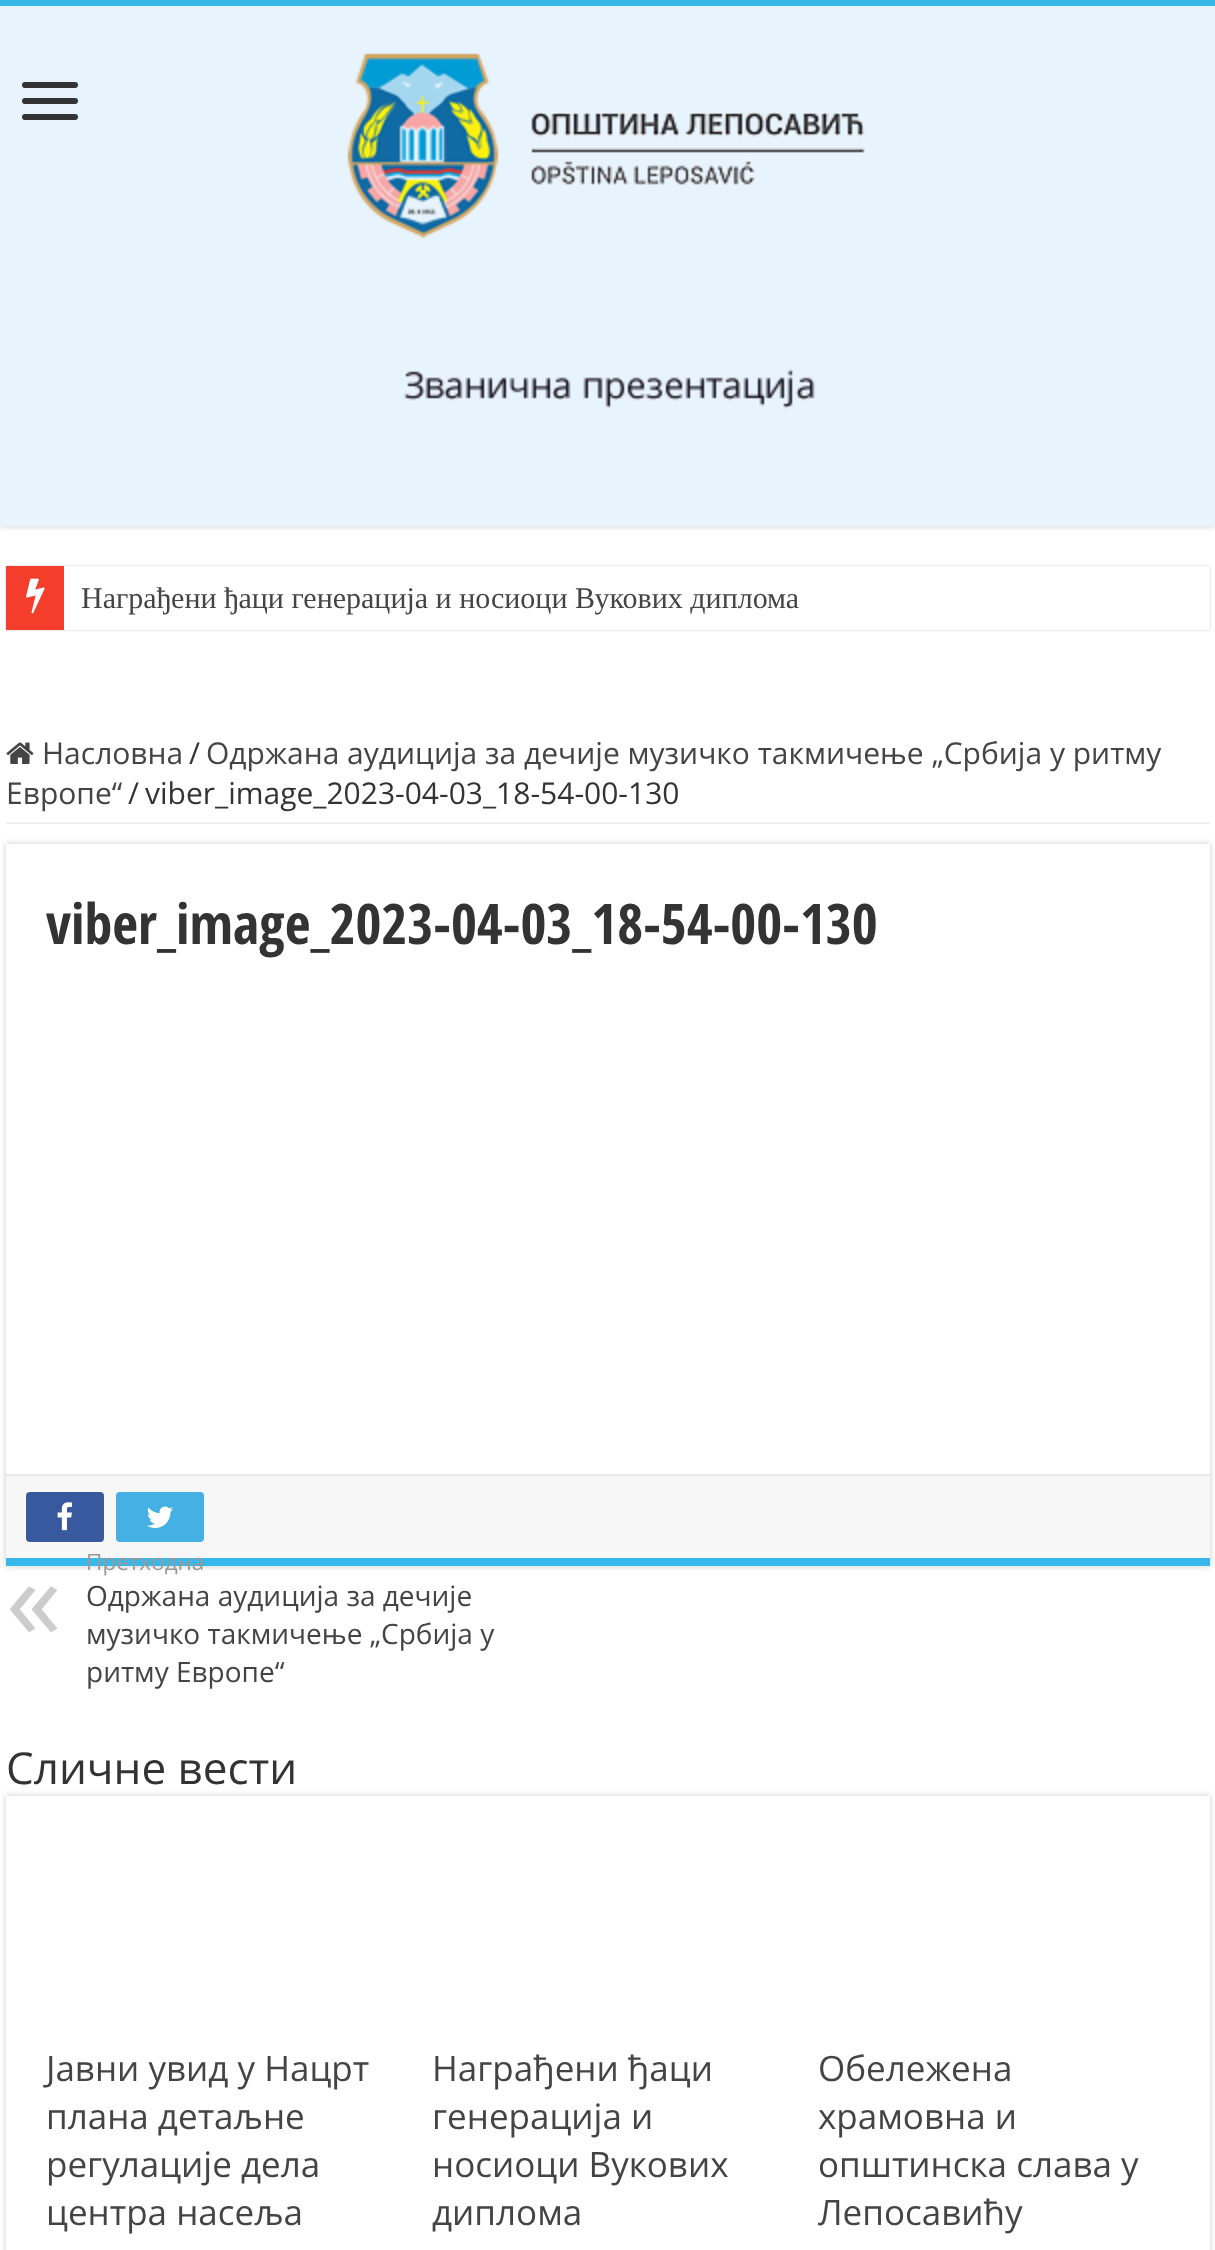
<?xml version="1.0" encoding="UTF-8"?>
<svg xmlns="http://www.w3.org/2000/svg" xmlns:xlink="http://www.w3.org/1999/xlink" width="1215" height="2250">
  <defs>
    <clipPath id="clip1"><path d="M 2 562 h 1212 v 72 h -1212 z m 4 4 h 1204 v 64 h -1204 z" clip-rule="evenodd" /></clipPath>
    <clipPath id="clip2"><path d="M 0 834 h 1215 v 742 h -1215 z m 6 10 h 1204 v 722 h -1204 z" clip-rule="evenodd" /></clipPath>
    <clipPath id="clip3"><path d="M 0 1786 h 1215 v 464 h -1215 z m 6 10 h 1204 v 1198 h -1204 z" clip-rule="evenodd" /></clipPath>
  </defs>
  <rect width="100%" height="100%" fill="#ffffff" />
  <rect width="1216" height="526" fill="#cacaca" filter="blur(3px)" />
  <rect y="6" width="1215" height="520" fill="#e7f4fe" />
  <rect width="1215" height="6" fill="#37b8eb" />
  <rect x="22" y="82" width="56" height="6" rx="3" fill="#333333" />
  <rect x="22" y="98" width="56" height="6" rx="3" fill="#333333" />
  <rect x="22" y="114" width="56" height="6" rx="3" fill="#333333" />
  <image x="347" y="53" width="518" height="186" xlink:href="image1.png" />
  <image x="403" y="369" width="412" height="40" xlink:href="image2.png" />
  <g clip-path="url(#clip1)">
    <rect x="6" y="566" width="1204" height="64" fill="#cacaca" filter="blur(1px)" />
  </g>
  <rect x="6" y="566" width="58" height="64" fill="#f43d2a" />
  <image x="26" y="578" width="19" height="36" xlink:href="image3.png" />
  <rect x="6" y="822" width="1204" height="2" fill="#eeeeee" />
  <image x="6" y="742" width="28" height="22" xlink:href="image4.png" />
  <g clip-path="url(#clip2)">
    <rect x="6" y="844" width="1204" height="722" fill="#cacaca" filter="blur(3px)" />
  </g>
  <rect x="6" y="1558" width="1204" height="8" fill="#37b8eb" />
  <rect x="6" y="1476" width="1204" height="82" fill="#f7f7f7" />
  <rect x="6" y="1474" width="1204" height="2" fill="#eaeaea" />
  <rect x="26" y="1492" width="78" height="50" rx="4" fill="#39599f" />
  <image x="57" y="1502" width="16" height="29" xlink:href="image5.png" />
  <rect x="116" y="1492" width="88" height="50" rx="4" fill="#45b0e3" />
  <image x="147" y="1506" width="26" height="22" xlink:href="image6.png" />
  <g clip-path="url(#clip3)">
    <rect x="6" y="1796" width="1204" height="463" fill="#cacaca" filter="blur(3px)" />
  </g>
  <text x="81" y="608" style="font-family: Liberation Serif; font-size: 30px; fill: #444444">Награђени ђаци генерација и носиоци Вукових диплома</text>
  <text x="42" y="764" style="font-family: Open Sans; font-size: 30px; fill: #444444">Насловна</text>
  <text x="189" y="764" style="font-family: Open Sans; font-size: 30px; fill: #333333">/</text>
  <text x="206" y="764" style="font-family: Open Sans; font-size: 30px; fill: #444444">Одржана аудиција за дечије музичко такмичење „Србија у ритму</text>
  <text x="6" y="804" style="font-family: Open Sans; font-size: 30px; fill: #444444">Европе“</text>
  <text x="128" y="804" style="font-family: Open Sans; font-size: 30px; fill: #333333">/</text>
  <text x="145" y="804" style="font-family: Open Sans; font-size: 30px; fill: #333333">viber_image_2023-04-03_18-54-00-130</text>
  <text x="46" y="944" style="font-family: Open Sans Condensed; font-size: 56px; font-weight: bold; fill: #333333">viber_image_2023-04-03_18-54-00-130</text>
  <text x="86" y="1570" style="font-family: Open Sans; font-size: 22.5px; fill: #999999">Претходна</text>
  <text x="6" y="1639" style="font-family: Open Sans; font-size: 112px; fill: #cccccc">«</text>
  <text x="86" y="1606" style="font-family: Open Sans; font-size: 28px; fill: #444444">Одржана аудиција за дечије</text>
  <text x="86" y="1644" style="font-family: Open Sans; font-size: 28px; fill: #444444">музичко такмичење „Србија у</text>
  <text x="86" y="1682" style="font-family: Open Sans; font-size: 28px; fill: #444444">ритму Европе“</text>
  <text x="6" y="1784" style="font-family: Open Sans; font-size: 44px; fill: #333333">Сличне вести</text>
  <text x="46" y="2081" style="font-family: Open Sans; font-size: 35px; fill: #444444">Јавни увид у Нацрт</text>
  <text x="46" y="2129" style="font-family: Open Sans; font-size: 35px; fill: #444444">плана детаљне</text>
  <text x="46" y="2177" style="font-family: Open Sans; font-size: 35px; fill: #444444">регулације дела</text>
  <text x="46" y="2225" style="font-family: Open Sans; font-size: 35px; fill: #444444">центра насеља</text>
  <text x="432" y="2081" style="font-family: Open Sans; font-size: 35px; fill: #444444">Награђени ђаци</text>
  <text x="432" y="2129" style="font-family: Open Sans; font-size: 35px; fill: #444444">генерација и</text>
  <text x="432" y="2177" style="font-family: Open Sans; font-size: 35px; fill: #444444">носиоци Вукових</text>
  <text x="432" y="2225" style="font-family: Open Sans; font-size: 35px; fill: #444444">диплома</text>
  <text x="818" y="2081" style="font-family: Open Sans; font-size: 35px; fill: #444444">Обележена</text>
  <text x="818" y="2129" style="font-family: Open Sans; font-size: 35px; fill: #444444">храмовна и</text>
  <text x="818" y="2177" style="font-family: Open Sans; font-size: 35px; fill: #444444">општинска слава у</text>
  <text x="818" y="2225" style="font-family: Open Sans; font-size: 35px; fill: #444444">Лепосавићу</text>
</svg>
